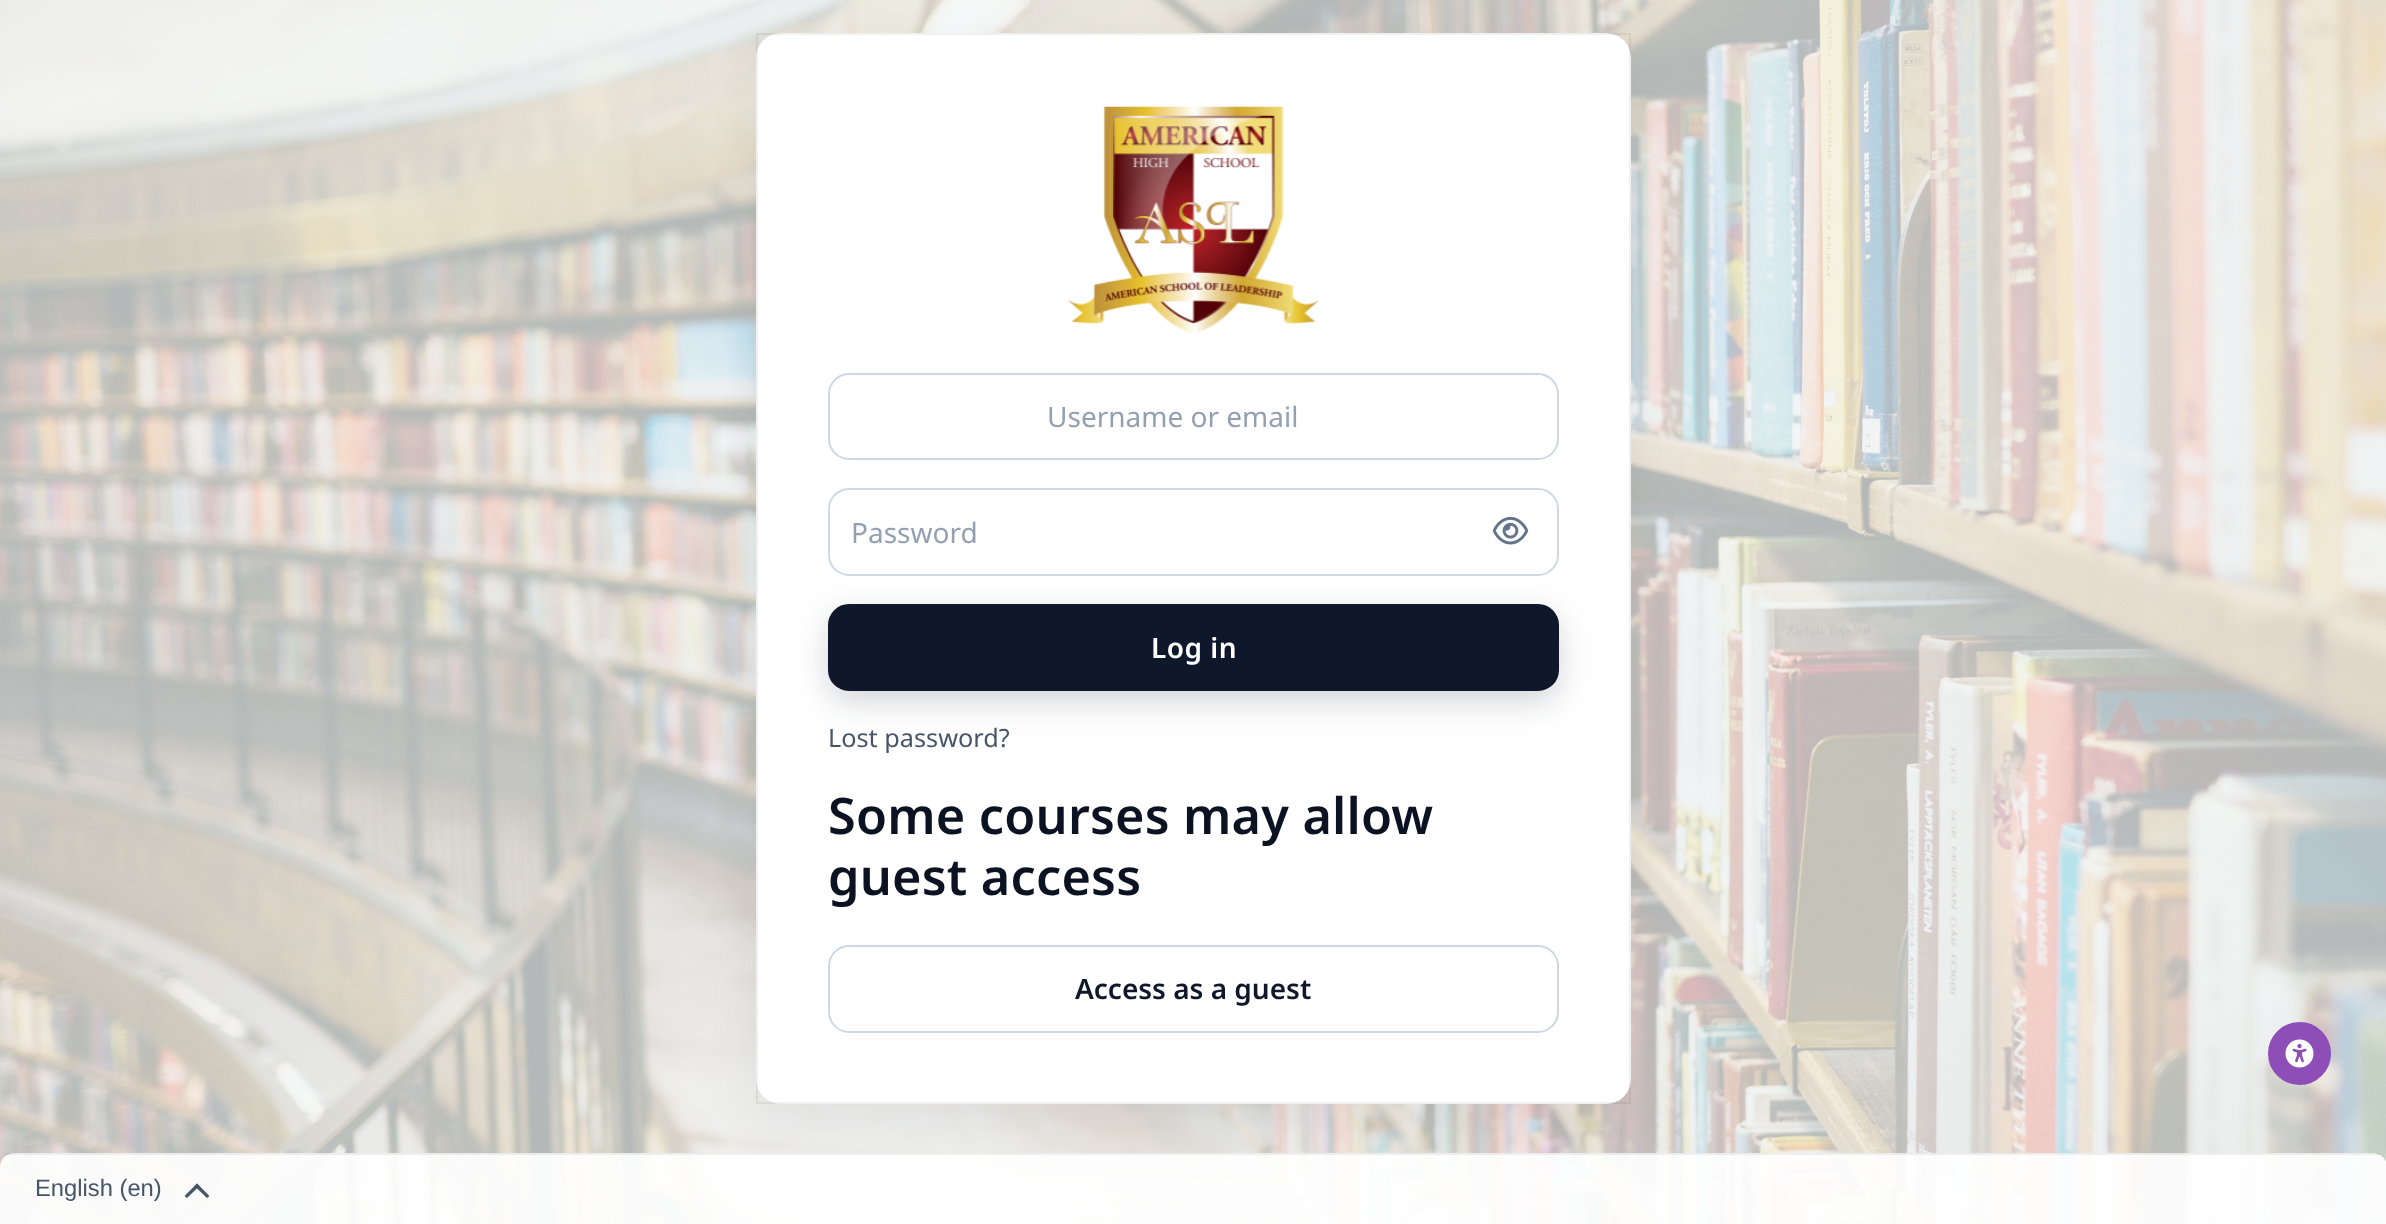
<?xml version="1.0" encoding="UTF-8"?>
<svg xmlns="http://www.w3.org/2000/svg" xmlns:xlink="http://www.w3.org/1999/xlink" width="2386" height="1224">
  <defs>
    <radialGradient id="g1" gradientUnits="userSpaceOnUse" cx="0" cy="0" r="1" gradientTransform="matrix(1575 0 0 875 2387 1470)"><stop offset="0" stop-color="#f5f8fa" /><stop offset="0.6" stop-color="#fbffff" /></radialGradient>
  </defs>
  <rect width="100%" height="100%" fill="#ffffff" />
  <rect width="2386" height="1224" fill="url(#g1)" />
  <image x="0" y="0" width="2386" height="1224" xlink:href="image1.png" />
  <rect x="756" y="54" width="875" height="1071" rx="25" fill="#020617" fill-opacity="0.06" filter="blur(24.5px)" />
  <rect x="756" y="33" width="875" height="1071" rx="25" fill="#ffffff" />
  <rect x="757" y="34" width="873" height="1069" fill="none" stroke="#020617" stroke-opacity="0.06" stroke-width="2" />
  <image x="1067" y="106" width="253" height="228" xlink:href="image2.png" />
  <rect x="829" y="374" width="729" height="85" rx="20" fill="none" stroke="#cfd7e3" stroke-width="2" />
  <rect x="828" y="614" width="731" height="88" rx="21" fill="#0f172a" fill-opacity="0.18" filter="blur(16px)" />
  <rect x="829" y="489" width="729" height="86" rx="20" fill="none" stroke="#cfd7e3" stroke-width="2" />
  <image x="1492" y="516" width="37" height="29" xlink:href="image3.png" />
  <rect x="829" y="605" width="729" height="85" rx="20" fill="#0f172a" stroke="#0f172a" stroke-width="2" />
  <rect x="829" y="946" width="729" height="86" rx="20" fill="none" stroke="#cfd7e3" stroke-width="2" />
  <circle cx="2299.5" cy="1053.5" r="30.5" fill="#8e4eb7" stroke="#8e4eb7" stroke-width="2" />
  <image x="2285" y="1039" width="29" height="29" xlink:href="image4.png" />
  <path d="M 14 1153 h 2359 c 7.5 0 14 6.5 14 14 v 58 h -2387 v -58 c 0 -7.5 6.5 -14 14 -14 z" fill="#ffffff" fill-opacity="0.92" />
  <rect x="7" y="1153" width="2373" height="2" fill="#020617" fill-opacity="0.06" />
  <path d="M 187 1198 l -2.5 -2 l 12.5 -12.5 l 2.5 2.5 z" fill="#475569" />
  <path d="M 207 1198 l -12.5 -12 l 2.5 -2.5 l 12.5 12.5 z" fill="#475569" />
  <text x="1047" y="427" style="font-family: Noto Sans; font-size: 28px; fill: #93a0b2">Username or email</text>
  <text x="851" y="543" style="font-family: Noto Sans; font-size: 28px; fill: #93a0b2">Password</text>
  <text x="1151" y="658" style="font-family: Noto Sans; font-size: 28px; font-weight: 600; letter-spacing: 0.5px; fill: #ffffff">Log in</text>
  <text x="828" y="747" style="font-family: Noto Sans; font-size: 25.25px; fill: #475569">Lost password?</text>
  <text x="828" y="834" style="font-family: Noto Sans; font-size: 50.4px; font-weight: 600; letter-spacing: 0.2px; fill: #0b1221">Some courses may allow</text>
  <text x="828" y="895" style="font-family: Noto Sans; font-size: 50.4px; font-weight: 600; letter-spacing: 0.2px; fill: #0b1221">guest access</text>
  <text x="1075" y="999" style="font-family: Noto Sans; font-size: 28px; font-weight: 600; fill: #0f172a">Access as a guest</text>
  <text x="35" y="1196" style="font-family: Liberation Sans; font-size: 23.75px; fill: #475569">English (en)</text>
</svg>
